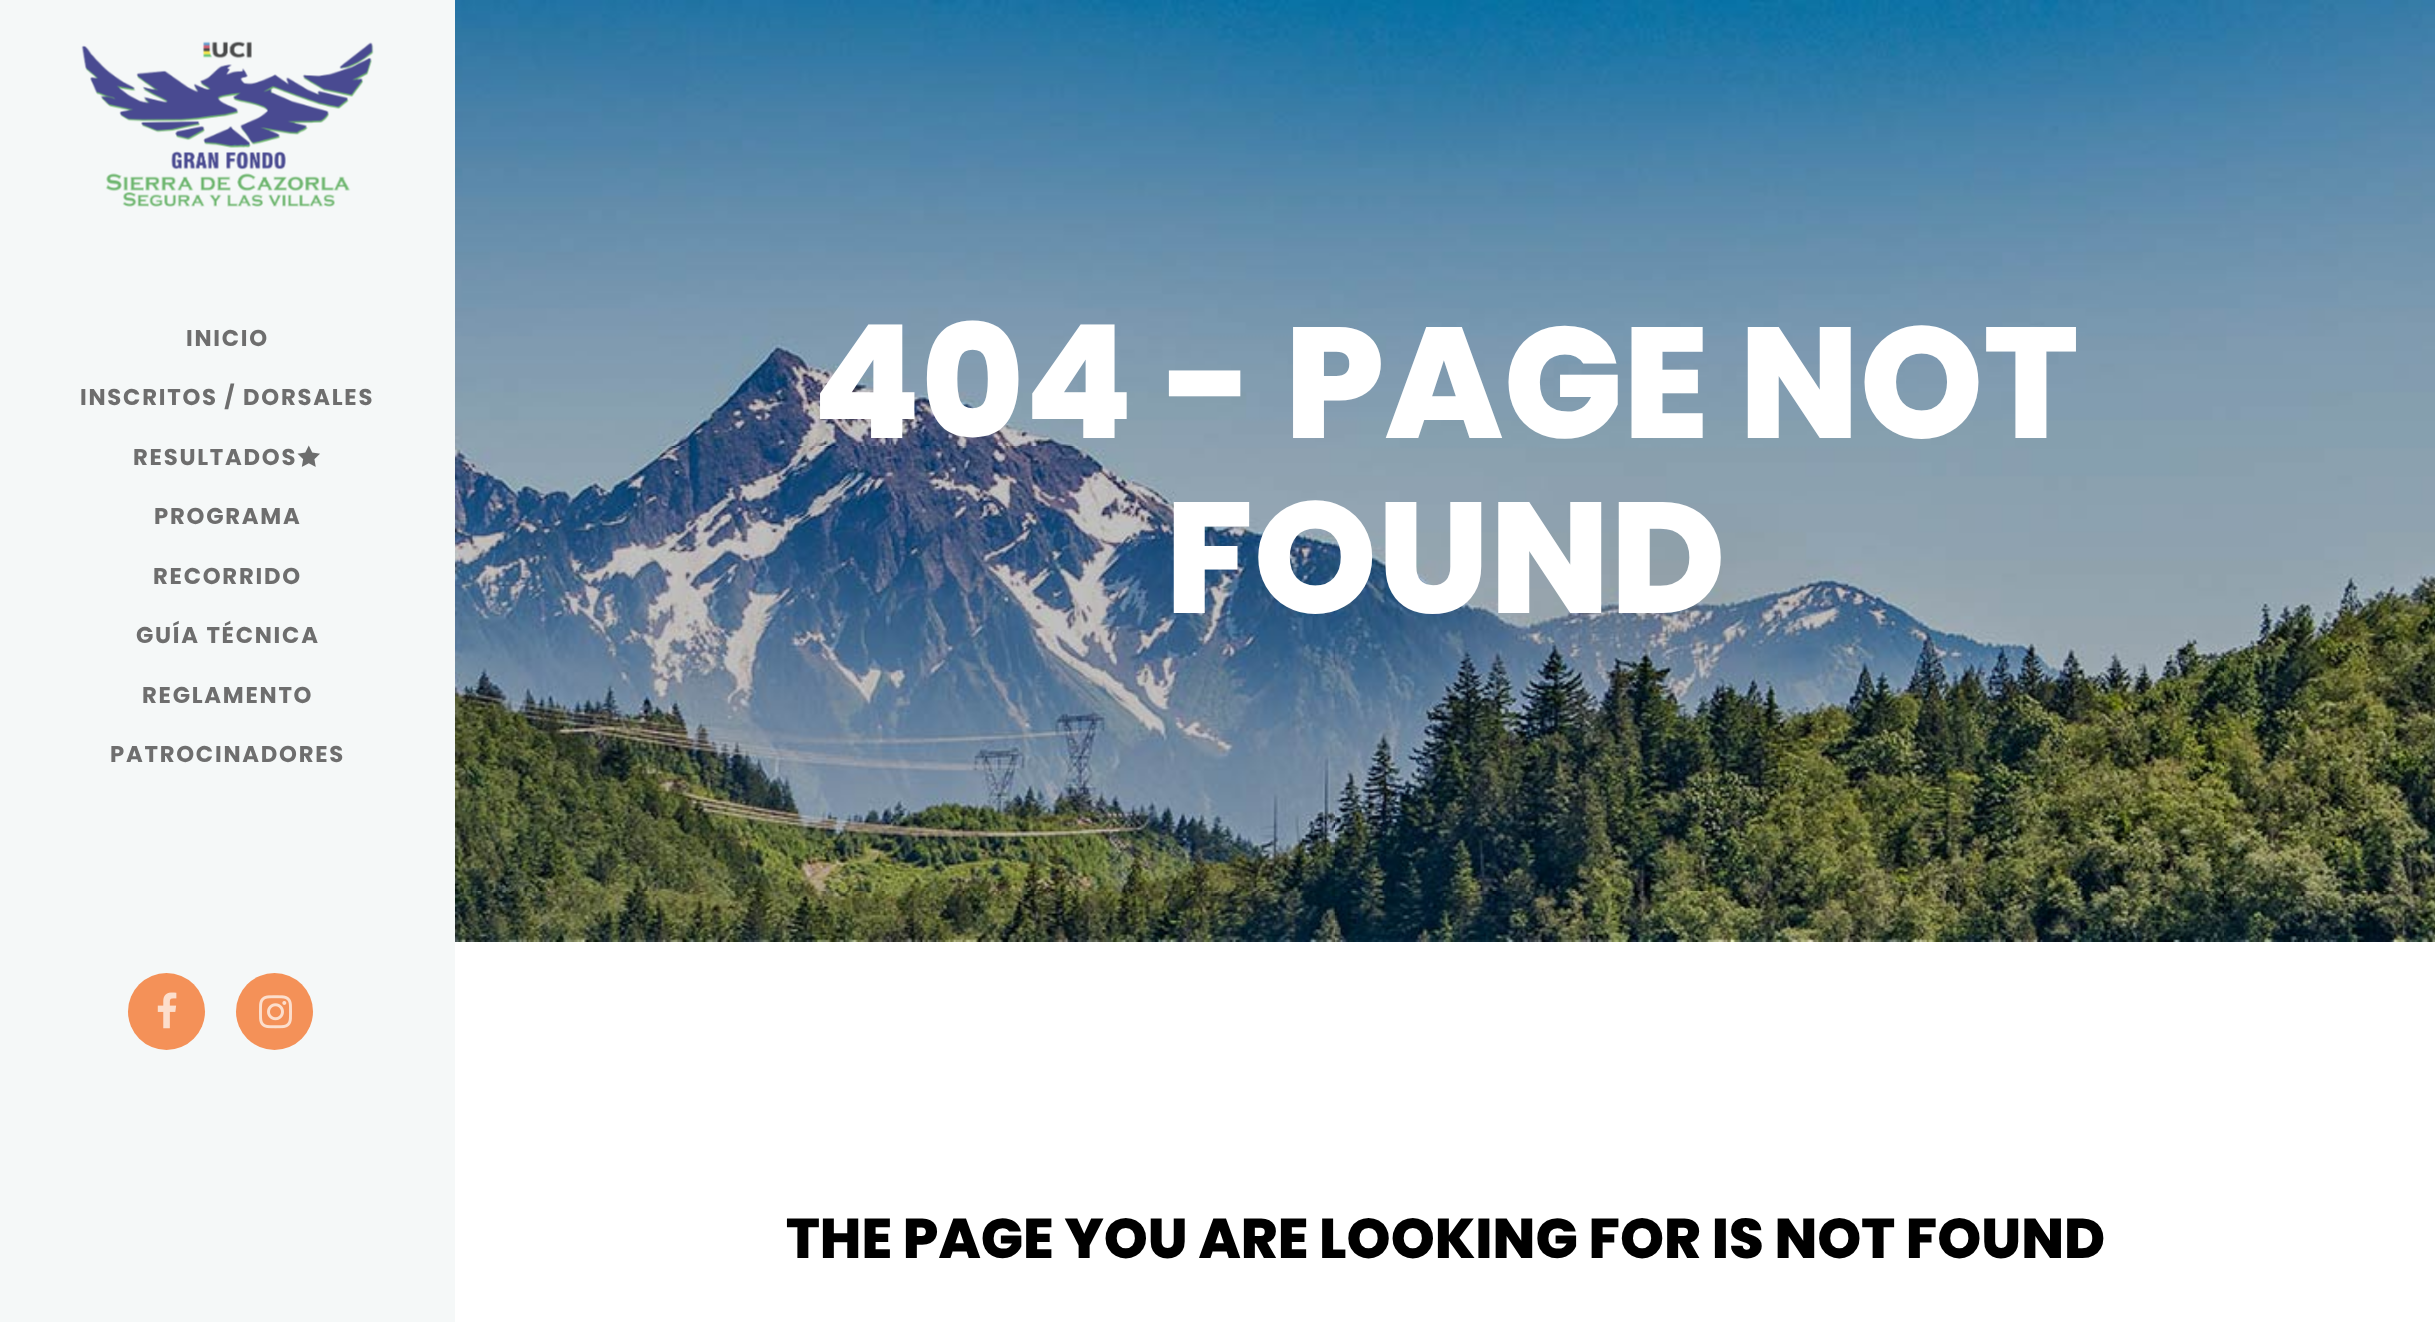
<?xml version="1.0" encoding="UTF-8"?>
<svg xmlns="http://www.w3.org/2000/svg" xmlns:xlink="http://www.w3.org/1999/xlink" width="2435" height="1322">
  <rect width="100%" height="100%" fill="#ffffff" />
  <rect width="455" height="1322" fill="#f5f8f8" />
  <image x="81" y="41" width="293" height="166" xlink:href="image1.png" />
  <image x="297" y="445" width="23" height="22" xlink:href="image2.png" />
  <circle cx="166.5" cy="1011.5" r="38.5" fill="#f49158" />
  <image x="157" y="992" width="20" height="37" xlink:href="image3.png" />
  <circle cx="274.5" cy="1011.5" r="38.5" fill="#f49158" />
  <image x="259" y="995" width="33" height="34" xlink:href="image4.png" />
  <image x="455" y="0" width="1980" height="942" xlink:href="image5.png" />
  <text x="186" y="346" style="font-family: Poppins; font-size: 22.75px; font-weight: bold; letter-spacing: 1.75px; fill: #6e6e6e">INICIO</text>
  <text x="80" y="405" style="font-family: Poppins; font-size: 22.75px; font-weight: bold; letter-spacing: 1.75px; fill: #6e6e6e">INSCRITOS / DORSALES</text>
  <text x="133" y="465" style="font-family: Poppins; font-size: 22.75px; font-weight: bold; letter-spacing: 1.75px; fill: #6e6e6e">RESULTADOS</text>
  <text x="154" y="524" style="font-family: Poppins; font-size: 22.75px; font-weight: bold; letter-spacing: 1.75px; fill: #6e6e6e">PROGRAMA</text>
  <text x="153" y="584" style="font-family: Poppins; font-size: 22.75px; font-weight: bold; letter-spacing: 1.75px; fill: #6e6e6e">RECORRIDO</text>
  <text x="136" y="643" style="font-family: Poppins; font-size: 22.75px; font-weight: bold; letter-spacing: 1.75px; fill: #6e6e6e">GUÍA TÉCNICA</text>
  <text x="142" y="703" style="font-family: Poppins; font-size: 22.75px; font-weight: bold; letter-spacing: 1.75px; fill: #6e6e6e">REGLAMENTO</text>
  <text x="110" y="762" style="font-family: Poppins; font-size: 22.75px; font-weight: bold; letter-spacing: 1.75px; fill: #6e6e6e">PATROCINADORES</text>
  <text x="812" y="438" style="font-family: Poppins; font-size: 157.5px; font-weight: 800; fill: #ffffff">404 - PAGE NOT</text>
  <text x="1165" y="613" style="font-family: Poppins; font-size: 157.5px; font-weight: 800; fill: #ffffff">FOUND</text>
  <text x="786" y="1258" style="font-family: Poppins; font-size: 56px; font-weight: 800; fill: #000000">THE PAGE YOU ARE LOOKING FOR IS NOT FOUND</text>
</svg>
